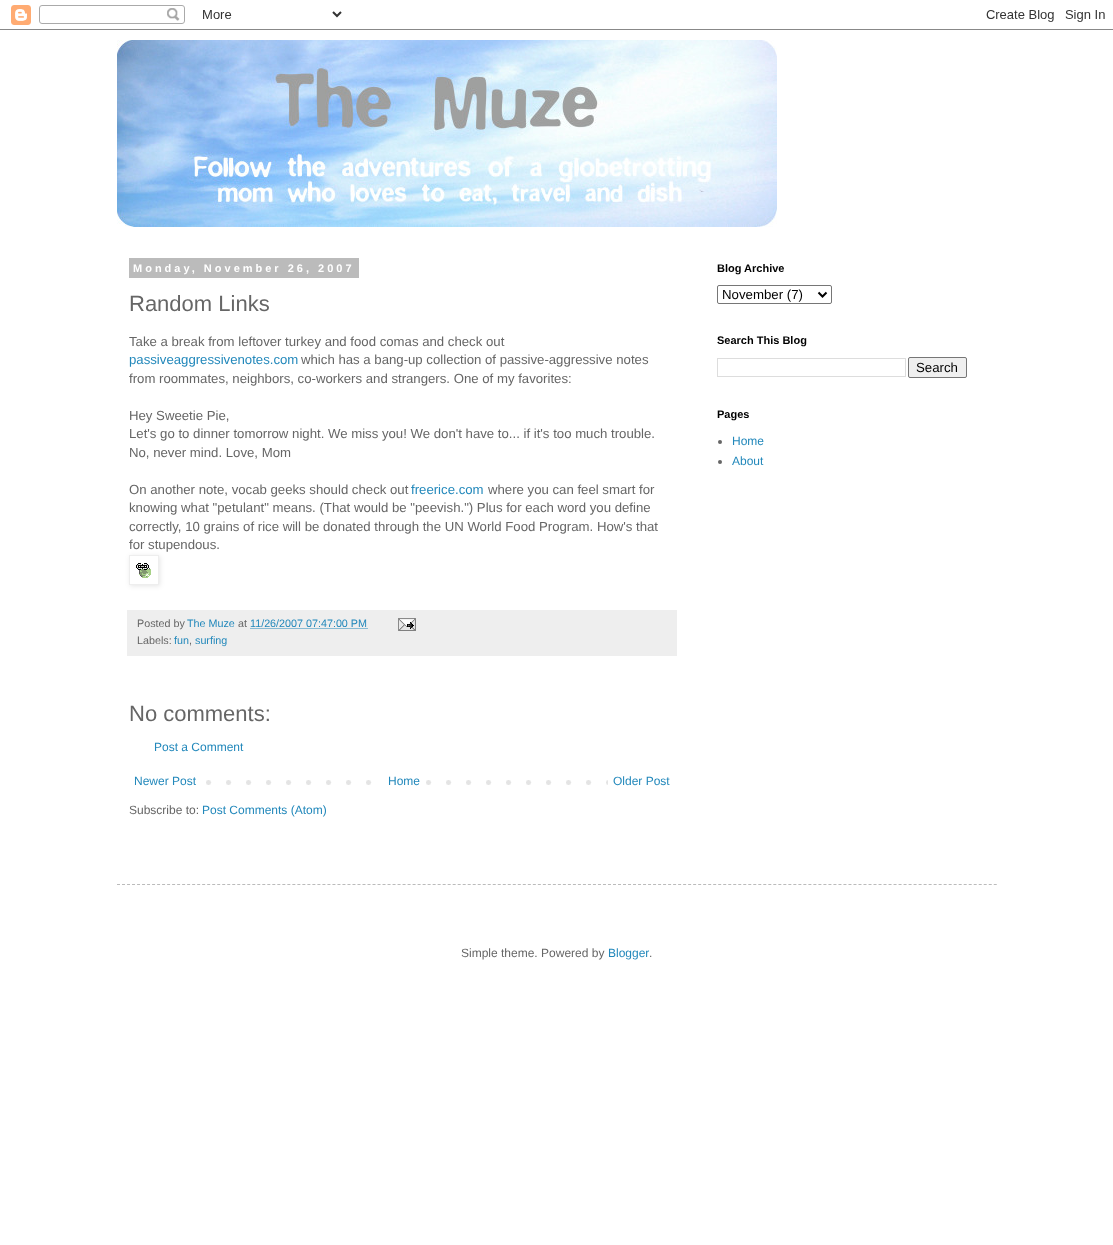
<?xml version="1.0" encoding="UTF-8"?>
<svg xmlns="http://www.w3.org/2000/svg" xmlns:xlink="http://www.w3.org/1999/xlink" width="1113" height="1245">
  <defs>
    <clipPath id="clip1"><path d="M 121 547 h 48 v 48 h -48 z m 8 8 h 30 v 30 h -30 z" clip-rule="evenodd" /></clipPath>
  </defs>
  <rect width="100%" height="100%" fill="#ffffff" />
  <image x="0" y="5" width="1113" height="25" xlink:href="image1.png" />
  <image x="117" y="40" width="660" height="187" xlink:href="image2.png" />
  <rect x="129" y="258" width="230" height="20" fill="#bbbbbb" />
  <g clip-path="url(#clip1)">
    <rect x="130" y="556" width="30" height="30" fill="#000000" fill-opacity="0.1" filter="blur(2.5px)" />
  </g>
  <rect x="129.5" y="555.5" width="29" height="29" fill="none" stroke="#eeeeee" />
  <image x="136" y="563" width="15" height="15" xlink:href="image3.png" />
  <rect x="127" y="610" width="550" height="46" fill="#eeeeee" />
  <path d="M 250.5 628.5 h 117.5" fill="none" stroke="#2288bb" stroke-dasharray="1 1" />
  <image x="398" y="618" width="18" height="13" xlink:href="image4.png" />
  <image x="206" y="780" width="402" height="5" xlink:href="image5.png" />
  <rect x="386" y="780" width="26" height="5" fill="#ffffff" />
  <rect x="717.5" y="285.5" width="114" height="18" rx="1.5" fill="none" stroke="#767676" />
  <path d="M 818.5 292.5 l 4 4 l 4 -4" fill="none" stroke="#000000" stroke-width="2" />
  <rect x="717.5" y="358.5" width="188" height="18" fill="none" stroke="#dddddd" />
  <rect x="908.5" y="357.5" width="58" height="20" rx="1.5" fill="#efefef" stroke="#767676" />
  <circle cx="720" cy="442" r="2" fill="#666666" />
  <circle cx="720" cy="462" r="2" fill="#666666" />
  <path d="M 117 884.5 h 880" fill="none" stroke="#bbbbbb" stroke-dasharray="3 2.01" />
  <text x="133" y="272" style="font-family: Liberation Sans; font-size: 11px; font-weight: bold; letter-spacing: 3px; fill: #ffffff">Monday, November 26, 2007</text>
  <text x="129" y="311" style="font-family: Liberation Sans; font-size: 22px; fill: #666666">Random Links</text>
  <text x="129" y="346" style="font-family: Liberation Sans; font-size: 13.2px; fill: #666666">Take a break from leftover turkey and food comas and check out</text>
  <text x="129" y="364" style="font-family: Liberation Sans; font-size: 13.2px; fill: #2288bb">passiveaggressivenotes.com</text>
  <text x="301" y="364" style="font-family: Liberation Sans; font-size: 13.2px; fill: #666666">which has a bang-up collection of passive-aggressive notes</text>
  <text x="129" y="383" style="font-family: Liberation Sans; font-size: 13.2px; fill: #666666">from roommates, neighbors, co-workers and strangers. One of my favorites:</text>
  <text x="129" y="420" style="font-family: Liberation Sans; font-size: 13.2px; fill: #666666">Hey Sweetie Pie,</text>
  <text x="129" y="438" style="font-family: Liberation Sans; font-size: 13.2px; fill: #666666">Let's go to dinner tomorrow night. We miss you! We don't have to... if it's too much trouble.</text>
  <text x="129" y="457" style="font-family: Liberation Sans; font-size: 13.2px; fill: #666666">No, never mind. Love, Mom</text>
  <text x="129" y="494" style="font-family: Liberation Sans; font-size: 13.2px; fill: #666666">On another note, vocab geeks should check out</text>
  <text x="411" y="494" style="font-family: Liberation Sans; font-size: 13.2px; fill: #2288bb">freerice.com</text>
  <text x="488" y="494" style="font-family: Liberation Sans; font-size: 13.2px; fill: #666666">where you can feel smart for</text>
  <text x="129" y="512" style="font-family: Liberation Sans; font-size: 13.2px; fill: #666666">knowing what "petulant" means. (That would be "peevish.") Plus for each word you define</text>
  <text x="129" y="531" style="font-family: Liberation Sans; font-size: 13.2px; fill: #666666">correctly, 10 grains of rice will be donated through the UN World Food Program. How's that</text>
  <text x="129" y="549" style="font-family: Liberation Sans; font-size: 13.2px; fill: #666666">for stupendous.</text>
  <text x="137" y="627" style="font-family: Liberation Sans; font-size: 10.75px; fill: #666666">Posted by</text>
  <text x="187" y="627" style="font-family: Liberation Sans; font-size: 10.75px; fill: #2288bb">The Muze</text>
  <text x="238" y="627" style="font-family: Liberation Sans; font-size: 10.75px; fill: #666666">at</text>
  <text x="250" y="627" style="font-family: Liberation Sans; font-size: 10.75px; fill: #2288bb">11/26/2007 07:47:00 PM</text>
  <text x="137" y="644" style="font-family: Liberation Sans; font-size: 10.75px; fill: #666666">Labels:</text>
  <text x="174" y="644" style="font-family: Liberation Sans; font-size: 10.75px; fill: #2288bb">fun</text>
  <text x="189" y="644" style="font-family: Liberation Sans; font-size: 10.75px; fill: #666666">,</text>
  <text x="195" y="644" style="font-family: Liberation Sans; font-size: 10.75px; fill: #2288bb">surfing</text>
  <text x="129" y="721" style="font-family: Liberation Sans; font-size: 22px; fill: #666666">No comments:</text>
  <text x="154" y="751" style="font-family: Liberation Sans; font-size: 12px; fill: #2288bb">Post a Comment</text>
  <text x="134" y="785" style="font-family: Liberation Sans; font-size: 12px; fill: #2288bb">Newer Post</text>
  <text x="388" y="785" style="font-family: Liberation Sans; font-size: 12px; fill: #2288bb">Home</text>
  <text x="613" y="785" style="font-family: Liberation Sans; font-size: 12px; fill: #2288bb">Older Post</text>
  <text x="129" y="814" style="font-family: Liberation Sans; font-size: 12px; fill: #666666">Subscribe to:</text>
  <text x="202" y="814" style="font-family: Liberation Sans; font-size: 12px; fill: #2288bb">Post Comments (Atom)</text>
  <text x="717" y="272" style="font-family: Liberation Sans; font-size: 11px; font-weight: bold; fill: #000000">Blog Archive</text>
  <text x="722" y="299" style="font-family: Liberation Sans; font-size: 13.25px; fill: #000000">November (7)</text>
  <text x="717" y="344" style="font-family: Liberation Sans; font-size: 11px; font-weight: bold; fill: #000000">Search This Blog</text>
  <text x="916" y="372" style="font-family: Liberation Sans; font-size: 13.25px; fill: #000000">Search</text>
  <text x="717" y="418" style="font-family: Liberation Sans; font-size: 11px; font-weight: bold; fill: #000000">Pages</text>
  <text x="732" y="445" style="font-family: Liberation Sans; font-size: 12px; fill: #2288bb">Home</text>
  <text x="732" y="465" style="font-family: Liberation Sans; font-size: 12px; fill: #2288bb">About</text>
  <text x="461" y="957" style="font-family: Liberation Sans; font-size: 12px; fill: #666666">Simple theme. Powered by</text>
  <text x="608" y="957" style="font-family: Liberation Sans; font-size: 12px; fill: #2288bb">Blogger</text>
  <text x="649" y="957" style="font-family: Liberation Sans; font-size: 12px; fill: #666666">.</text>
</svg>
